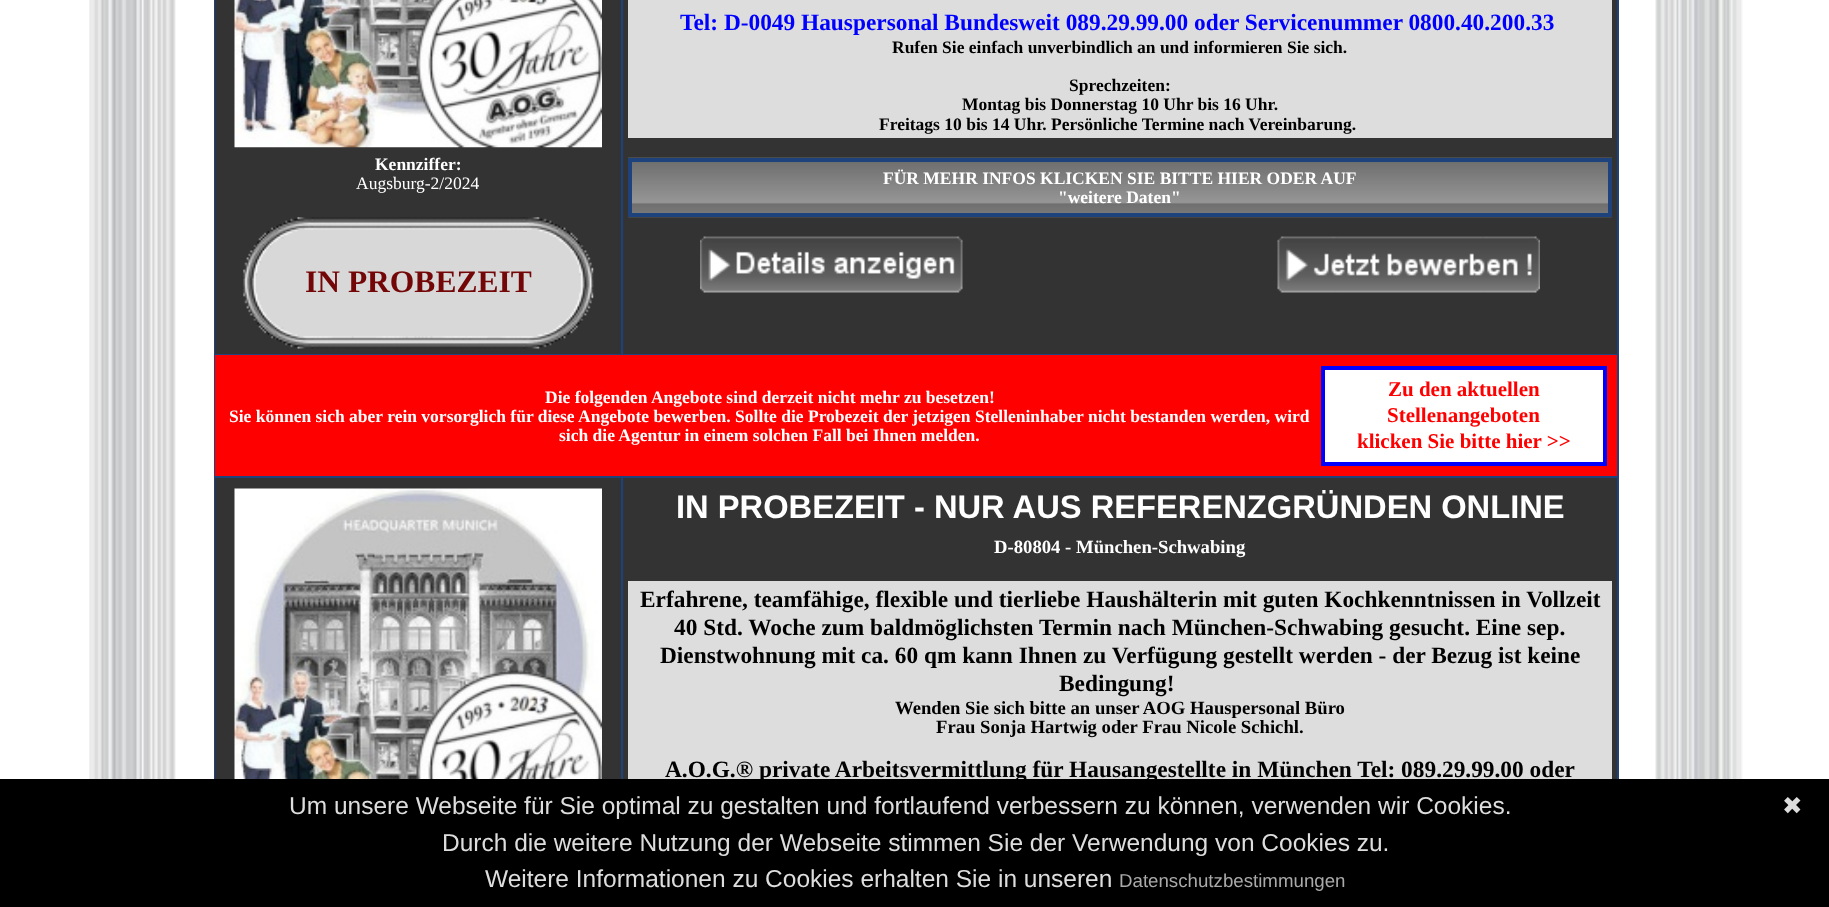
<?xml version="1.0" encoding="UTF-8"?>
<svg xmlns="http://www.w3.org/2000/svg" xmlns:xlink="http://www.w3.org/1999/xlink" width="1829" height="907">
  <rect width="100%" height="100%" fill="#ffffff" />
  <image x="89" y="0" width="87" height="779" xlink:href="image1.png" />
  <image x="1655" y="0" width="88" height="779" xlink:href="image2.png" />
  <rect x="214" width="1405" height="779" fill="#1d427c" />
  <rect x="623" width="994" height="354" fill="#333333" />
  <rect x="628" width="984" height="138" fill="#dddddd" />
  <image x="628" y="157" width="984" height="61" xlink:href="image3.png" />
  <rect x="630" y="160" width="980" height="55" fill="none" stroke="#1d427c" stroke-width="4" />
  <image x="700" y="236" width="263" height="57" xlink:href="image4.png" />
  <image x="1277" y="236" width="263" height="57" xlink:href="image5.png" />
  <rect x="215" width="406" height="354" fill="#333333" />
  <image x="234" y="0" width="368" height="148" xlink:href="image6.png" />
  <image x="243" y="217" width="351" height="132" xlink:href="image7.png" />
  <rect x="215" y="355" width="1402" height="121" fill="#ff0000" />
  <rect x="1323" y="368" width="282" height="96" fill="#ffffff" stroke="#0000ff" stroke-width="4" />
  <rect x="215" y="478" width="406" height="301" fill="#333333" />
  <image x="234" y="488" width="368" height="291" xlink:href="image8.png" />
  <rect x="623" y="478" width="994" height="301" fill="#333333" />
  <rect x="628" y="581" width="984" height="198" fill="#dddddd" />
  <rect y="779" width="1829" height="128" fill="#000000" />
  <text x="680" y="30" style="font-family: Liberation Serif; font-size: 23.35px; font-weight: bold; fill: #0000ff">Tel: D-0049 Hauspersonal Bundesweit 089.29.99.00 oder Servicenummer 0800.40.200.33</text>
  <text x="892" y="53" style="font-family: Liberation Serif; font-size: 17.5px; font-weight: bold; fill: #000000">Rufen Sie einfach unverbindlich an und informieren Sie sich.</text>
  <text x="1069" y="91" style="font-family: Liberation Serif; font-size: 17.5px; font-weight: bold; fill: #000000">Sprechzeiten:</text>
  <text x="962" y="110" style="font-family: Liberation Serif; font-size: 17.5px; font-weight: bold; fill: #000000">Montag bis Donnerstag 10 Uhr bis 16 Uhr.</text>
  <text x="879" y="130" style="font-family: Liberation Serif; font-size: 17.5px; font-weight: bold; fill: #000000">Freitags 10 bis 14 Uhr. Persönliche Termine nach Vereinbarung.</text>
  <text x="883" y="184" style="font-family: Liberation Serif; font-size: 17.5px; font-weight: bold; fill: #ffffff">FÜR MEHR INFOS KLICKEN SIE BITTE HIER ODER AUF</text>
  <text x="1058" y="203" style="font-family: Liberation Serif; font-size: 17.5px; font-weight: bold; fill: #ffffff">"weitere Daten"</text>
  <text x="375" y="170" style="font-family: Liberation Serif; font-size: 17.5px; font-weight: bold; fill: #ffffff">Kennziffer:</text>
  <text x="356" y="189" style="font-family: Liberation Serif; font-size: 17.5px; fill: #ffffff">Augsburg-2/2024</text>
  <text x="305" y="292" style="font-family: Liberation Serif; font-size: 31.5px; font-weight: bold; fill: #730707">IN PROBEZEIT</text>
  <text x="545" y="403" style="font-family: Liberation Serif; font-size: 17.5px; font-weight: bold; fill: #ffffff">Die folgenden Angebote sind derzeit nicht mehr zu besetzen!</text>
  <text x="229" y="422" style="font-family: Liberation Serif; font-size: 17.5px; font-weight: bold; fill: #ffffff">Sie können sich aber rein vorsorglich für diese Angebote bewerben. Sollte die Probezeit der jetzigen Stelleninhaber nicht bestanden werden, wird</text>
  <text x="559" y="441" style="font-family: Liberation Serif; font-size: 17.5px; font-weight: bold; fill: #ffffff">sich die Agentur in einem solchen Fall bei Ihnen melden.</text>
  <text x="1388" y="396" style="font-family: Liberation Serif; font-size: 21px; font-weight: bold; fill: #ff0000">Zu den aktuellen</text>
  <text x="1387" y="422" style="font-family: Liberation Serif; font-size: 21px; font-weight: bold; fill: #ff0000">Stellenangeboten</text>
  <text x="1357" y="448" style="font-family: Liberation Serif; font-size: 21px; font-weight: bold; fill: #ff0000">klicken Sie bitte hier &gt;&gt;</text>
  <text x="676" y="518" style="font-family: Liberation Sans; font-size: 32.7px; font-weight: bold; fill: #ffffff">IN PROBEZEIT - NUR AUS REFERENZGRÜNDEN ONLINE</text>
  <text x="994" y="553" style="font-family: Liberation Serif; font-size: 18.7px; font-weight: bold; fill: #ffffff">D-80804 - München-Schwabing</text>
  <text x="640" y="607" style="font-family: Liberation Serif; font-size: 23.35px; font-weight: bold; fill: #000000">Erfahrene, teamfähige, flexible und tierliebe Haushälterin mit guten Kochkenntnissen in Vollzeit</text>
  <text x="674" y="635" style="font-family: Liberation Serif; font-size: 23.35px; font-weight: bold; fill: #000000">40 Std. Woche zum baldmöglichsten Termin nach München-Schwabing gesucht. Eine sep.</text>
  <text x="660" y="663" style="font-family: Liberation Serif; font-size: 23.35px; font-weight: bold; fill: #000000">Dienstwohnung mit ca. 60 qm kann Ihnen zu Verfügung gestellt werden - der Bezug ist keine</text>
  <text x="1059" y="691" style="font-family: Liberation Serif; font-size: 23.35px; font-weight: bold; fill: #000000">Bedingung!</text>
  <text x="895" y="714" style="font-family: Liberation Serif; font-size: 18.7px; font-weight: bold; fill: #000000">Wenden Sie sich bitte an unser AOG Hauspersonal Büro</text>
  <text x="936" y="733" style="font-family: Liberation Serif; font-size: 18.7px; font-weight: bold; fill: #000000">Frau Sonja Hartwig oder Frau Nicole Schichl.</text>
  <text x="665" y="777" style="font-family: Liberation Serif; font-size: 23.35px; font-weight: bold; fill: #000000">A.O.G.® private Arbeitsvermittlung für Hausangestellte in München Tel: 089.29.99.00 oder</text>
  <text x="289" y="814" style="font-family: Liberation Sans; font-size: 24.5px; fill: #dddddd">Um unsere Webseite für Sie optimal zu gestalten und fortlaufend verbessern zu können, verwenden wir Cookies.</text>
  <text x="1782" y="814" style="font-family: DejaVu Sans; font-size: 24.5px; fill: #dddddd">✖</text>
  <text x="442" y="851" style="font-family: Liberation Sans; font-size: 24.5px; fill: #dddddd">Durch die weitere Nutzung der Webseite stimmen Sie der Verwendung von Cookies zu.</text>
  <text x="485" y="887" style="font-family: Liberation Sans; font-size: 24.5px; fill: #dddddd">Weitere Informationen zu Cookies erhalten Sie in unseren</text>
  <text x="1119" y="887" style="font-family: Liberation Sans; font-size: 18.7px; fill: #aaaaaa">Datenschutzbestimmungen</text>
</svg>
